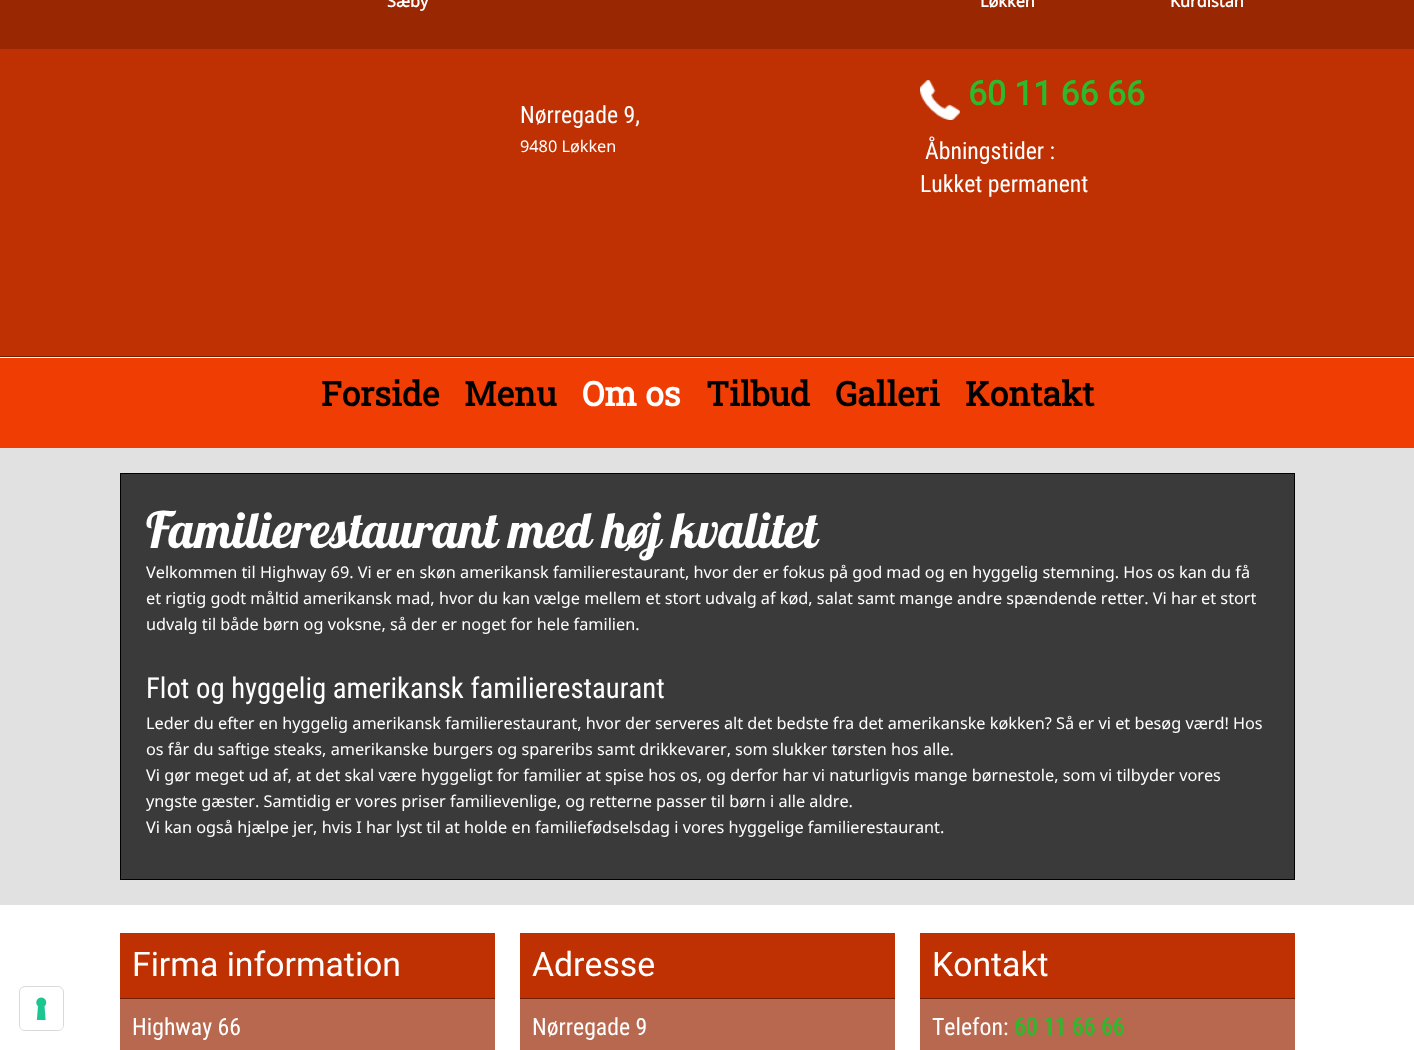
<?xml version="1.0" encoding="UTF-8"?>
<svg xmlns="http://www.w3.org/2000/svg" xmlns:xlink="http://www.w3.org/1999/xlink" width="1414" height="1050">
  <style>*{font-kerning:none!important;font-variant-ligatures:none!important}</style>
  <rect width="100%" height="100%" fill="#ffffff" />
  <rect x="19.5" y="986.5" width="44" height="44" rx="5.5" fill="none" stroke="#d9d9d9" />
  <rect x="20" y="988" width="43" height="42" rx="5" fill="#ffffff" />
  <image x="36" y="997" width="11" height="23" xlink:href="image1.png" />
  <rect width="1414" height="49" fill="#992702" />
  <rect y="49" width="1414" height="307" fill="#bf3102" />
  <image x="920" y="80" width="40" height="40" xlink:href="image2.png" />
  <rect y="358" width="1414" height="90" fill="#ef3d03" />
  <rect y="356" width="1414" height="1" fill="#731d01" />
  <rect y="448" width="1414" height="457" fill="#e1e1e1" />
  <rect x="120.5" y="473.5" width="1174" height="406" fill="#3a3a3a" stroke="#000000" />
  <rect x="120" y="933" width="375" height="65" fill="#bf3102" />
  <rect x="120" y="998" width="375" height="1" fill="#731d01" />
  <rect x="120" y="999" width="375" height="51" fill="#b8684e" />
  <rect x="520" y="933" width="375" height="65" fill="#bf3102" />
  <rect x="520" y="998" width="375" height="1" fill="#731d01" />
  <rect x="520" y="999" width="375" height="51" fill="#b8684e" />
  <rect x="920" y="933" width="375" height="65" fill="#bf3102" />
  <rect x="920" y="998" width="375" height="1" fill="#731d01" />
  <rect x="920" y="999" width="375" height="51" fill="#b8684e" />
  <text x="387" y="7" style="font-family: Noto Sans; font-size: 16.25px; font-weight: bold; fill: #ffffff">Sæby</text>
  <text x="980" y="7" style="font-family: Noto Sans; font-size: 16.25px; font-weight: bold; fill: #ffffff">Løkken</text>
  <text x="1170" y="7" style="font-family: Noto Sans; font-size: 16.25px; font-weight: bold; fill: #ffffff">Kurdistan</text>
  <text x="520" y="123" style="font-family: Roboto Condensed; font-size: 23.75px; fill: #ffffff">Nørregade 9,</text>
  <text x="520" y="152" style="font-family: Noto Sans; font-size: 16.25px; fill: #ffffff">9480 Løkken</text>
  <text x="968" y="105" style="font-family: Roboto; font-size: 33.75px; font-weight: bold; fill: #2eb82e">60 11 66 66</text>
  <text x="925" y="159" style="font-family: Roboto Condensed; font-size: 23.75px; fill: #ffffff">Åbningstider :</text>
  <text x="920" y="192" style="font-family: Roboto Condensed; font-size: 23.75px; fill: #ffffff">Lukket permanent</text>
  <text x="321" y="406" style="font-family: Roboto Slab; font-size: 33.75px; font-weight: bold; fill: #000000">Forside</text>
  <text x="464" y="406" style="font-family: Roboto Slab; font-size: 33.75px; font-weight: bold; fill: #000000">Menu</text>
  <text x="582" y="406" style="font-family: Roboto Slab; font-size: 33.75px; font-weight: bold; fill: #ffffff">Om os</text>
  <text x="706" y="406" style="font-family: Roboto Slab; font-size: 33.75px; font-weight: bold; fill: #000000">Tilbud</text>
  <text x="835" y="406" style="font-family: Roboto Slab; font-size: 33.75px; font-weight: bold; fill: #000000">Galleri</text>
  <text x="965" y="406" style="font-family: Roboto Slab; font-size: 33.75px; font-weight: bold; fill: #000000">Kontakt</text>
  <text x="146" y="548" style="font-family: Lobster; font-size: 50px; fill: #ffffff">Familierestaurant med høj kvalitet</text>
  <text x="146" y="578" style="font-family: Noto Sans; font-size: 16.25px; fill: #ffffff">Velkommen til Highway 69. Vi er en skøn amerikansk familierestaurant, hvor der er fokus på god mad og en hyggelig stemning. Hos os kan du få</text>
  <text x="146" y="604" style="font-family: Noto Sans; font-size: 16.25px; fill: #ffffff">et rigtig godt måltid amerikansk mad, hvor du kan vælge mellem et stort udvalg af kød, salat samt mange andre spændende retter. Vi har et stort</text>
  <text x="146" y="630" style="font-family: Noto Sans; font-size: 16.25px; fill: #ffffff">udvalg til både børn og voksne, så der er noget for hele familien.</text>
  <text x="146" y="698" style="font-family: Roboto Condensed; font-size: 28.75px; fill: #ffffff">Flot og hyggelig amerikansk familierestaurant</text>
  <text x="146" y="729" style="font-family: Noto Sans; font-size: 16.25px; fill: #ffffff">Leder du efter en hyggelig amerikansk familierestaurant, hvor der serveres alt det bedste fra det amerikanske køkken? Så er vi et besøg værd! Hos</text>
  <text x="146" y="755" style="font-family: Noto Sans; font-size: 16.25px; fill: #ffffff">os får du saftige steaks, amerikanske burgers og spareribs samt drikkevarer,</text>
  <text x="735" y="755" style="font-family: Noto Sans; font-size: 16.25px; fill: #ffffff">som slukker tørsten hos alle.</text>
  <text x="146" y="781" style="font-family: Noto Sans; font-size: 16.25px; fill: #ffffff">Vi gør meget ud af, at det skal være hyggeligt for familier at spise hos os, og derfor har vi naturligvis mange børnestole, som vi tilbyder vores</text>
  <text x="146" y="807" style="font-family: Noto Sans; font-size: 16.25px; fill: #ffffff">yngste gæster. Samtidig er vores priser familievenlige, og retterne</text>
  <text x="656" y="807" style="font-family: Noto Sans; font-size: 16.25px; fill: #ffffff">passer til børn i alle aldre.</text>
  <text x="146" y="833" style="font-family: Noto Sans; font-size: 16.25px; fill: #ffffff">Vi kan også hjælpe jer, hvis I har lyst til at holde en familiefødselsdag i vores hyggelige familierestaurant.</text>
  <text x="132" y="976" style="font-family: Roboto; font-size: 33.75px; fill: #ffffff">Firma information</text>
  <text x="132" y="1035" style="font-family: Roboto Condensed; font-size: 23.75px; fill: #ffffff">Highway 66</text>
  <text x="532" y="976" style="font-family: Roboto; font-size: 33.75px; fill: #ffffff">Adresse</text>
  <text x="532" y="1035" style="font-family: Roboto Condensed; font-size: 23.75px; fill: #ffffff">Nørregade 9</text>
  <text x="932" y="976" style="font-family: Roboto; font-size: 33.75px; fill: #ffffff">Kontakt</text>
  <text x="932" y="1035" style="font-family: Roboto Condensed; font-size: 23.75px; fill: #ffffff">Telefon:</text>
  <text x="1014" y="1035" style="font-family: Roboto Condensed; font-size: 23.75px; font-weight: bold; fill: #2eb82e">60 11 66 66</text>
</svg>
